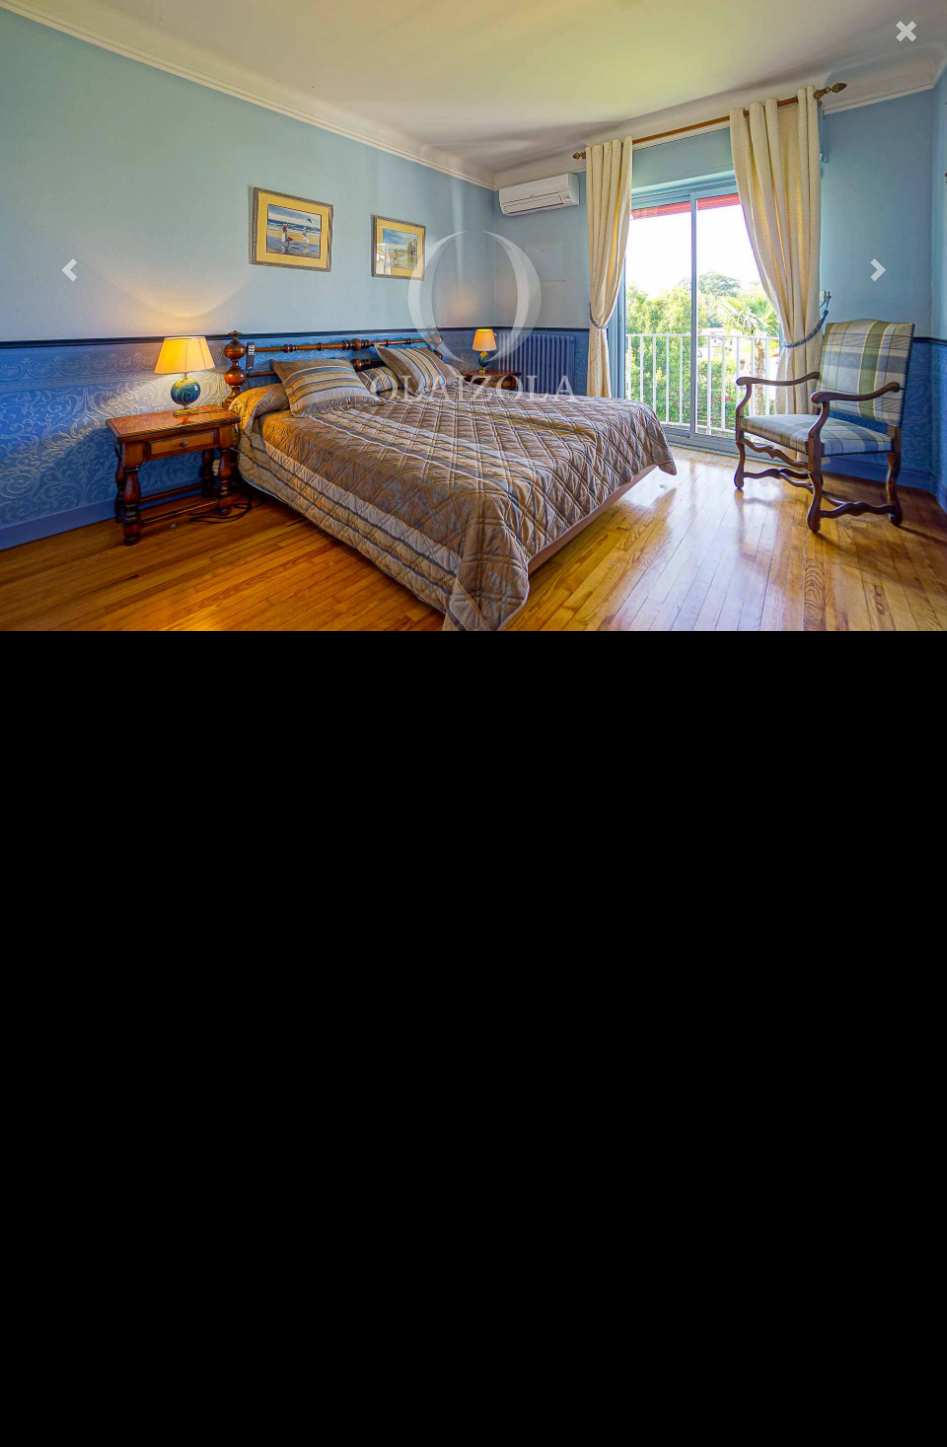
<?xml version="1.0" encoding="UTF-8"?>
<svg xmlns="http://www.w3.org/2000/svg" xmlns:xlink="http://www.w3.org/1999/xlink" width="947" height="1447">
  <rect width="100%" height="100%" fill="#000000" />
  <image x="0" y="0" width="947" height="631" xlink:href="image1.png" />
  <image x="896" y="21" width="21" height="21" xlink:href="image2.png" />
  <path d="M 77 262.5 l -7 7.5 l 7 7 l -4 4.5 l -11.5 -11.5 l 11.5 -11.5 z" fill="#ffffff" fill-opacity="0.5" />
  <path d="M 886 270 l -11.5 11.5 l -4 -4.5 l 7 -7 l -7 -7.5 l 4 -4 z" fill="#ffffff" fill-opacity="0.5" />
</svg>
